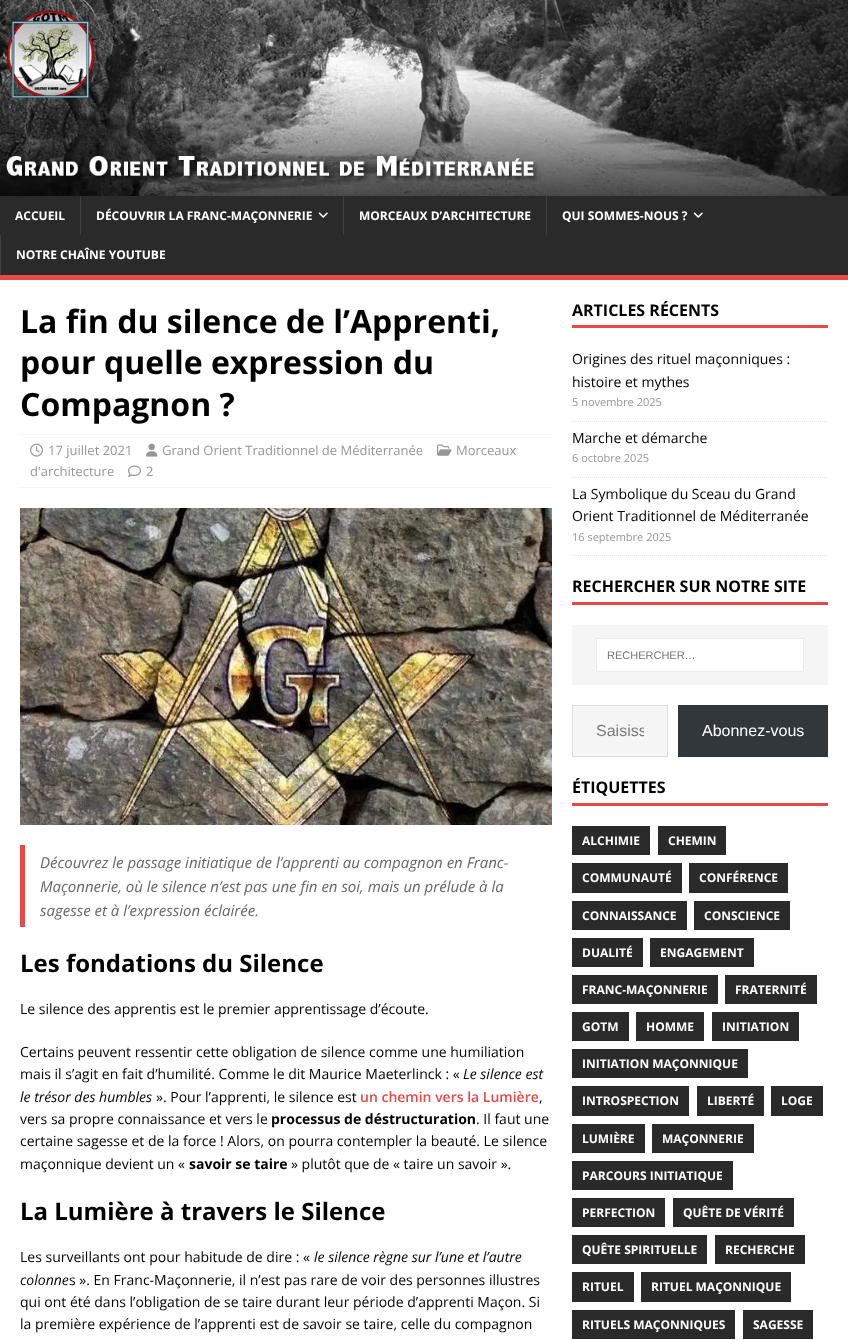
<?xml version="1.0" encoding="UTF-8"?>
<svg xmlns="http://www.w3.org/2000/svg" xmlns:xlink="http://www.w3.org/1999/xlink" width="848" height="1340">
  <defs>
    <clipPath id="clip1"><rect x="596" y="722" width="48" height="18" /></clipPath>
  </defs>
  <rect width="100%" height="100%" fill="#2a2a2a" />
  <image x="0" y="0" width="848" height="196" xlink:href="image1.png" />
  <rect y="275" width="848" height="5" fill="#e64946" />
  <rect x="80" y="196" width="1" height="39" fill="#3f3f3f" />
  <image x="318" y="212" width="10" height="6" xlink:href="image2.png" />
  <rect x="343" y="196" width="1" height="39" fill="#3f3f3f" />
  <rect x="546" y="196" width="1" height="39" fill="#3f3f3f" />
  <image x="693" y="212" width="10" height="6" xlink:href="image2.png" />
  <rect y="235" width="1" height="40" fill="#3f3f3f" />
  <rect y="280" width="848" height="1060" fill="#ffffff" />
  <path d="M 20 434.5 h 532" fill="none" stroke="#ebebeb" stroke-dasharray="1 1" />
  <path d="M 20 487.5 h 532" fill="none" stroke="#ebebeb" stroke-dasharray="1 1" />
  <image x="437" y="444" width="15" height="12" xlink:href="image3.png" />
  <image x="30" y="443" width="13" height="14" xlink:href="image4.png" />
  <image x="146" y="443" width="12" height="14" xlink:href="image5.png" />
  <image x="128" y="465" width="13" height="12" xlink:href="image6.png" />
  <image x="20" y="508" width="532" height="317" xlink:href="image7.png" />
  <rect x="20" y="845" width="5" height="82" fill="#e64946" />
  <rect x="572" y="325" width="256" height="3" fill="#e64946" />
  <path d="M 572 421.5 h 256" fill="none" stroke="#e5e5e5" stroke-dasharray="1 1" />
  <path d="M 572 477.5 h 256" fill="none" stroke="#e5e5e5" stroke-dasharray="1 1" />
  <path d="M 572 555.5 h 256" fill="none" stroke="#e5e5e5" stroke-dasharray="1 1" />
  <rect x="572" y="602" width="256" height="3" fill="#e64946" />
  <rect x="572" y="625" width="256" height="60" fill="#f5f5f5" />
  <rect x="596.5" y="638.5" width="207" height="33" fill="#ffffff" stroke="#ebebeb" />
  <rect x="572.5" y="705.5" width="95" height="51" fill="#f5f5f5" stroke="#dddddd" />
  <rect x="678" y="705" width="150" height="52" fill="#32373c" />
  <rect x="572" y="803" width="256" height="3" fill="#e64946" />
  <rect x="572" y="826" width="78" height="29" fill="#2a2a2a" />
  <rect x="658" y="826" width="68" height="29" fill="#2a2a2a" />
  <rect x="572" y="863" width="110" height="30" fill="#2a2a2a" />
  <rect x="689" y="863" width="99" height="30" fill="#2a2a2a" />
  <rect x="572" y="901" width="115" height="29" fill="#2a2a2a" />
  <rect x="694" y="901" width="96" height="29" fill="#2a2a2a" />
  <rect x="572" y="938" width="71" height="29" fill="#2a2a2a" />
  <rect x="650" y="938" width="104" height="29" fill="#2a2a2a" />
  <rect x="572" y="975" width="146" height="29" fill="#2a2a2a" />
  <rect x="725" y="975" width="92" height="29" fill="#2a2a2a" />
  <rect x="572" y="1012" width="57" height="29" fill="#2a2a2a" />
  <rect x="636" y="1012" width="68" height="29" fill="#2a2a2a" />
  <rect x="712" y="1012" width="87" height="29" fill="#2a2a2a" />
  <rect x="572" y="1049" width="176" height="29" fill="#2a2a2a" />
  <rect x="572" y="1086" width="117" height="30" fill="#2a2a2a" />
  <rect x="697" y="1086" width="67" height="30" fill="#2a2a2a" />
  <rect x="771" y="1086" width="52" height="30" fill="#2a2a2a" />
  <rect x="572" y="1124" width="73" height="29" fill="#2a2a2a" />
  <rect x="652" y="1124" width="102" height="29" fill="#2a2a2a" />
  <rect x="572" y="1161" width="161" height="29" fill="#2a2a2a" />
  <rect x="572" y="1198" width="93" height="29" fill="#2a2a2a" />
  <rect x="673" y="1198" width="121" height="29" fill="#2a2a2a" />
  <rect x="572" y="1235" width="135" height="29" fill="#2a2a2a" />
  <rect x="715" y="1235" width="90" height="29" fill="#2a2a2a" />
  <rect x="572" y="1272" width="62" height="30" fill="#2a2a2a" />
  <rect x="641" y="1272" width="150" height="30" fill="#2a2a2a" />
  <rect x="572" y="1310" width="163" height="29" fill="#2a2a2a" />
  <rect x="743" y="1310" width="70" height="29" fill="#2a2a2a" />
  <text x="15" y="220" style="font-family: Open Sans; font-size: 12px; font-weight: bold; fill: #ffffff">ACCUEIL</text>
  <text x="96" y="220" style="font-family: Open Sans; font-size: 12px; font-weight: bold; fill: #ffffff">DÉCOUVRIR LA FRANC-MAÇONNERIE</text>
  <text x="359" y="220" style="font-family: Open Sans; font-size: 12px; font-weight: bold; fill: #ffffff">MORCEAUX D’ARCHITECTURE</text>
  <text x="562" y="220" style="font-family: Open Sans; font-size: 12px; font-weight: bold; fill: #ffffff">QUI SOMMES-NOUS ?</text>
  <text x="16" y="259" style="font-family: Open Sans; font-size: 12px; font-weight: bold; fill: #ffffff">NOTRE CHAÎNE YOUTUBE</text>
  <text x="20" y="333" style="font-family: Open Sans; font-size: 32px; font-weight: bold; fill: #000000">La fin du silence de l’Apprenti,</text>
  <text x="20" y="374" style="font-family: Open Sans; font-size: 32px; font-weight: bold; fill: #000000">pour quelle expression du</text>
  <text x="20" y="416" style="font-family: Open Sans; font-size: 32px; font-weight: bold; fill: #000000">Compagnon ?</text>
  <text x="456" y="455" style="font-family: Open Sans; font-size: 13px; fill: #979797">Morceaux</text>
  <text x="30" y="476" style="font-family: Open Sans; font-size: 13px; fill: #979797">d'architecture</text>
  <text x="48" y="455" style="font-family: Open Sans; font-size: 13px; fill: #979797">17 juillet 2021</text>
  <text x="162" y="455" style="font-family: Open Sans; font-size: 13px; fill: #979797">Grand Orient Traditionnel de Méditerranée</text>
  <text x="146" y="476" style="font-family: Open Sans; font-size: 13px; fill: #979797">2</text>
  <text x="40" y="868" style="font-family: Open Sans; font-size: 15px; font-style: italic; fill: #666666">Découvrez le passage initiatique de l’apprenti au compagnon en Franc-</text>
  <text x="40" y="892" style="font-family: Open Sans; font-size: 15px; font-style: italic; fill: #666666">Maçonnerie, où le silence n’est pas une fin en soi, mais un prélude à la</text>
  <text x="40" y="916" style="font-family: Open Sans; font-size: 15px; font-style: italic; fill: #666666">sagesse et à l’expression éclairée.</text>
  <text x="20" y="972" style="font-family: Open Sans; font-size: 24px; font-weight: bold; fill: #000000">Les fondations du Silence</text>
  <text x="20" y="1014" style="font-family: Open Sans; font-size: 14px; fill: #000000">Le silence des apprentis est le premier apprentissage d’écoute.</text>
  <text x="20" y="1057" style="font-family: Open Sans; font-size: 14px; fill: #000000">Certains peuvent ressentir cette obligation de silence comme une humiliation</text>
  <text x="20" y="1079" style="font-family: Open Sans; font-size: 14px; fill: #000000">mais il s’agit en fait d’humilité. Comme le dit Maurice Maeterlinck : «</text>
  <text x="463" y="1079" style="font-family: Open Sans; font-size: 14px; font-style: italic; fill: #000000">Le silence est</text>
  <text x="20" y="1102" style="font-family: Open Sans; font-size: 14px; font-style: italic; fill: #000000">le trésor des humbles</text>
  <text x="156" y="1102" style="font-family: Open Sans; font-size: 14px; fill: #000000">». Pour l’apprenti, le silence est</text>
  <text x="360" y="1102" style="font-family: Open Sans; font-size: 14px; font-weight: 600; fill: #e64946">un chemin vers la Lumière</text>
  <text x="539" y="1102" style="font-family: Open Sans; font-size: 14px; fill: #000000">,</text>
  <text x="20" y="1124" style="font-family: Open Sans; font-size: 14px; fill: #000000">vers sa propre connaissance et vers le</text>
  <text x="271" y="1124" style="font-family: Open Sans; font-size: 14px; font-weight: bold; fill: #000000">processus de déstructuration</text>
  <text x="476" y="1124" style="font-family: Open Sans; font-size: 14px; fill: #000000">. Il faut une</text>
  <text x="20" y="1146" style="font-family: Open Sans; font-size: 14px; fill: #000000">certaine sagesse et de la force ! Alors, on pourra contempler la beauté. Le silence</text>
  <text x="20" y="1169" style="font-family: Open Sans; font-size: 14px; fill: #000000">maçonnique devient un «</text>
  <text x="189" y="1169" style="font-family: Open Sans; font-size: 14px; font-weight: bold; fill: #000000">savoir se taire</text>
  <text x="291" y="1169" style="font-family: Open Sans; font-size: 14px; fill: #000000">» plutôt que de « taire un savoir ».</text>
  <text x="20" y="1220" style="font-family: Open Sans; font-size: 24px; font-weight: bold; fill: #000000">La Lumière à travers le Silence</text>
  <text x="20" y="1262" style="font-family: Open Sans; font-size: 14px; fill: #000000">Les surveillants ont pour habitude de dire : «</text>
  <text x="314" y="1262" style="font-family: Open Sans; font-size: 14px; font-style: italic; fill: #000000">le silence règne sur l’une et l’autre</text>
  <text x="20" y="1285" style="font-family: Open Sans; font-size: 14px; font-style: italic; fill: #000000">colonne</text>
  <text x="69" y="1285" style="font-family: Open Sans; font-size: 14px; fill: #000000">s ». En Franc-Maçonnerie, il n’est pas rare de voir des personnes illustres</text>
  <text x="20" y="1307" style="font-family: Open Sans; font-size: 14px; fill: #000000">qui ont été dans l’obligation de se taire durant leur période d’apprenti Maçon. Si</text>
  <text x="20" y="1329" style="font-family: Open Sans; font-size: 14px; fill: #000000">la première expérience de l’apprenti est de savoir se taire, celle du compagnon</text>
  <text x="572" y="316" style="font-family: Open Sans; font-size: 16px; font-weight: bold; fill: #000000">ARTICLES RÉCENTS</text>
  <text x="572" y="364" style="font-family: Open Sans; font-size: 14px; fill: #000000">Origines des rituel maçonniques :</text>
  <text x="572" y="387" style="font-family: Open Sans; font-size: 14px; fill: #000000">histoire et mythes</text>
  <text x="572" y="406" style="font-family: Open Sans; font-size: 11px; fill: #979797">5 novembre 2025</text>
  <text x="572" y="443" style="font-family: Open Sans; font-size: 14px; fill: #000000">Marche et démarche</text>
  <text x="572" y="462" style="font-family: Open Sans; font-size: 11px; fill: #979797">6 octobre 2025</text>
  <text x="572" y="499" style="font-family: Open Sans; font-size: 14px; fill: #000000">La Symbolique du Sceau du Grand</text>
  <text x="572" y="521" style="font-family: Open Sans; font-size: 14px; fill: #000000">Orient Traditionnel de Méditerranée</text>
  <text x="572" y="541" style="font-family: Open Sans; font-size: 11px; fill: #979797">16 septembre 2025</text>
  <text x="572" y="592" style="font-family: Open Sans; font-size: 16px; font-weight: bold; fill: #000000">RECHERCHER SUR NOTRE SITE</text>
  <text x="607" y="659" style="font-family: Liberation Sans; font-size: 11px; fill: #757575">RECHERCHER…</text>
  <g clip-path="url(#clip1)">
    <text x="596" y="736" style="font-family: Liberation Sans; font-size: 16px; fill: #7b7b7b">Saisiss</text>
  </g>
  <text x="702" y="736" style="font-family: Liberation Sans; font-size: 16px; fill: #ffffff">Abonnez-vous</text>
  <text x="572" y="793" style="font-family: Open Sans; font-size: 16px; font-weight: bold; fill: #000000">ÉTIQUETTES</text>
  <text x="582" y="845" style="font-family: Open Sans; font-size: 12px; font-weight: bold; fill: #ffffff">ALCHIMIE</text>
  <text x="668" y="845" style="font-family: Open Sans; font-size: 12px; font-weight: bold; fill: #ffffff">CHEMIN</text>
  <text x="582" y="882" style="font-family: Open Sans; font-size: 12px; font-weight: bold; fill: #ffffff">COMMUNAUTÉ</text>
  <text x="699" y="882" style="font-family: Open Sans; font-size: 12px; font-weight: bold; fill: #ffffff">CONFÉRENCE</text>
  <text x="582" y="920" style="font-family: Open Sans; font-size: 12px; font-weight: bold; fill: #ffffff">CONNAISSANCE</text>
  <text x="704" y="920" style="font-family: Open Sans; font-size: 12px; font-weight: bold; fill: #ffffff">CONSCIENCE</text>
  <text x="582" y="957" style="font-family: Open Sans; font-size: 12px; font-weight: bold; fill: #ffffff">DUALITÉ</text>
  <text x="660" y="957" style="font-family: Open Sans; font-size: 12px; font-weight: bold; fill: #ffffff">ENGAGEMENT</text>
  <text x="582" y="994" style="font-family: Open Sans; font-size: 12px; font-weight: bold; fill: #ffffff">FRANC-MAÇONNERIE</text>
  <text x="735" y="994" style="font-family: Open Sans; font-size: 12px; font-weight: bold; fill: #ffffff">FRATERNITÉ</text>
  <text x="582" y="1031" style="font-family: Open Sans; font-size: 12px; font-weight: bold; fill: #ffffff">GOTM</text>
  <text x="646" y="1031" style="font-family: Open Sans; font-size: 12px; font-weight: bold; fill: #ffffff">HOMME</text>
  <text x="722" y="1031" style="font-family: Open Sans; font-size: 12px; font-weight: bold; fill: #ffffff">INITIATION</text>
  <text x="582" y="1068" style="font-family: Open Sans; font-size: 12px; font-weight: bold; fill: #ffffff">INITIATION MAÇONNIQUE</text>
  <text x="582" y="1105" style="font-family: Open Sans; font-size: 12px; font-weight: bold; fill: #ffffff">INTROSPECTION</text>
  <text x="707" y="1105" style="font-family: Open Sans; font-size: 12px; font-weight: bold; fill: #ffffff">LIBERTÉ</text>
  <text x="781" y="1105" style="font-family: Open Sans; font-size: 12px; font-weight: bold; fill: #ffffff">LOGE</text>
  <text x="582" y="1143" style="font-family: Open Sans; font-size: 12px; font-weight: bold; fill: #ffffff">LUMIÈRE</text>
  <text x="662" y="1143" style="font-family: Open Sans; font-size: 12px; font-weight: bold; fill: #ffffff">MAÇONNERIE</text>
  <text x="582" y="1180" style="font-family: Open Sans; font-size: 12px; font-weight: bold; fill: #ffffff">PARCOURS INITIATIQUE</text>
  <text x="582" y="1217" style="font-family: Open Sans; font-size: 12px; font-weight: bold; fill: #ffffff">PERFECTION</text>
  <text x="683" y="1217" style="font-family: Open Sans; font-size: 12px; font-weight: bold; fill: #ffffff">QUÊTE DE VÉRITÉ</text>
  <text x="582" y="1254" style="font-family: Open Sans; font-size: 12px; font-weight: bold; fill: #ffffff">QUÊTE SPIRITUELLE</text>
  <text x="725" y="1254" style="font-family: Open Sans; font-size: 12px; font-weight: bold; fill: #ffffff">RECHERCHE</text>
  <text x="582" y="1291" style="font-family: Open Sans; font-size: 12px; font-weight: bold; fill: #ffffff">RITUEL</text>
  <text x="651" y="1291" style="font-family: Open Sans; font-size: 12px; font-weight: bold; fill: #ffffff">RITUEL MAÇONNIQUE</text>
  <text x="582" y="1329" style="font-family: Open Sans; font-size: 12px; font-weight: bold; fill: #ffffff">RITUELS MAÇONNIQUES</text>
  <text x="753" y="1329" style="font-family: Open Sans; font-size: 12px; font-weight: bold; fill: #ffffff">SAGESSE</text>
</svg>
